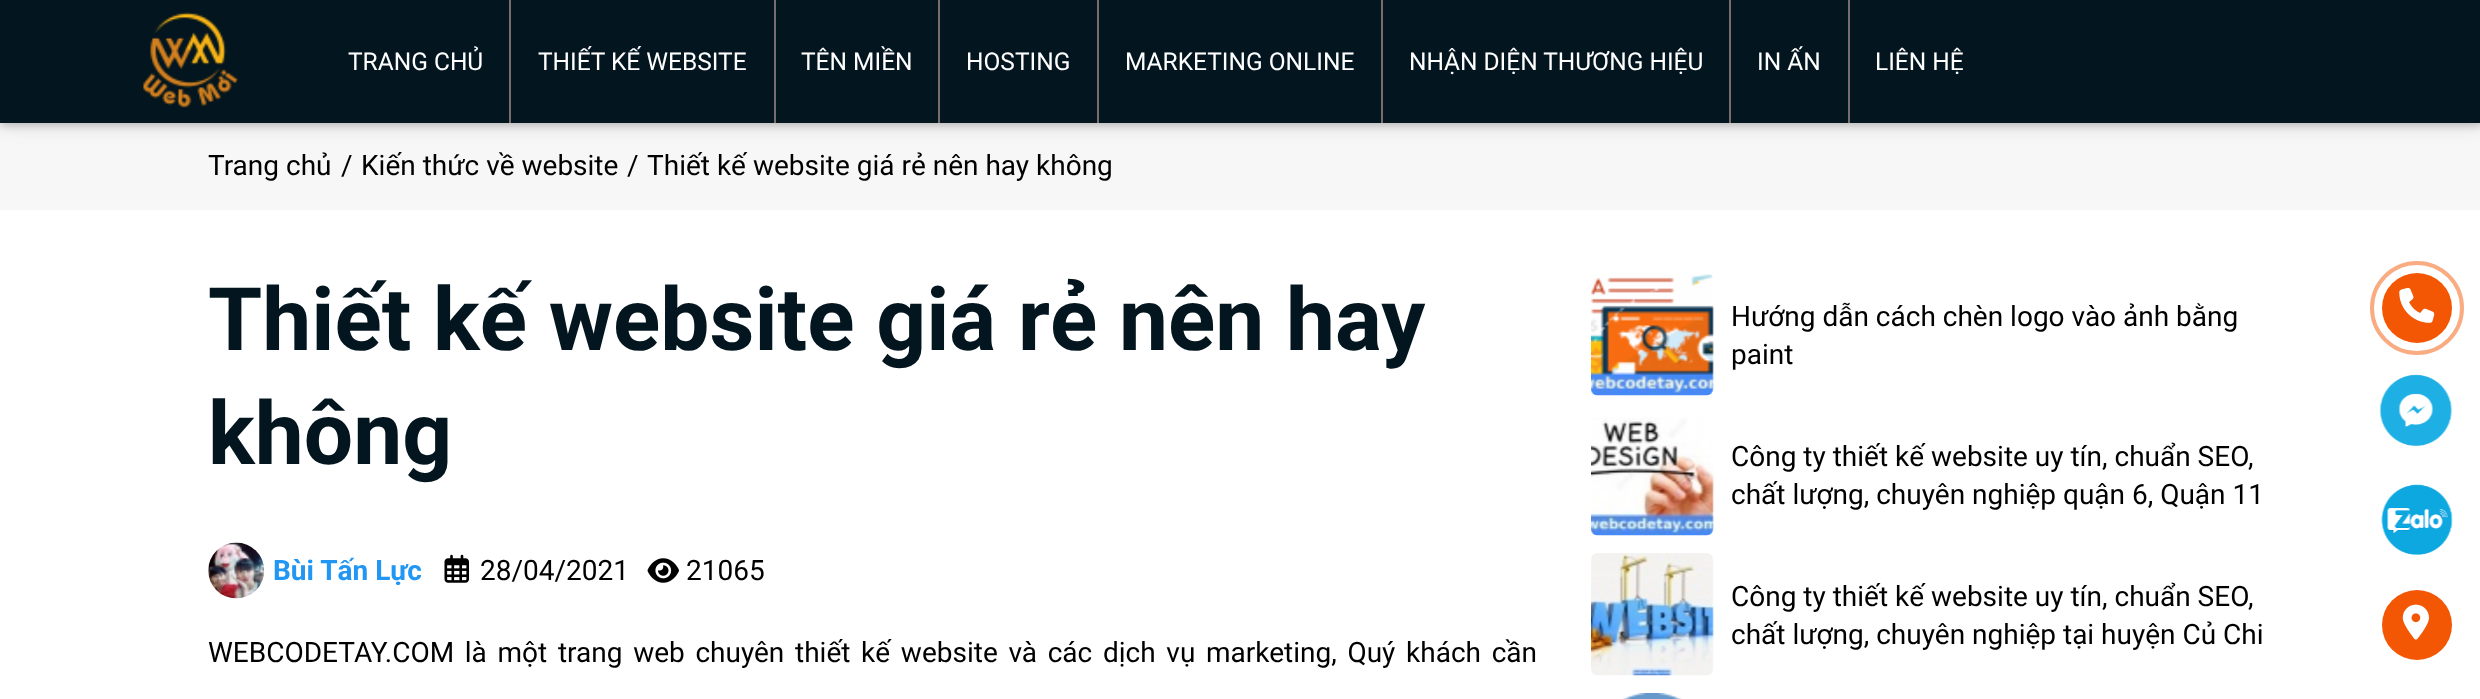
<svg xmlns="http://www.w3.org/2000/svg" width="2480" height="699">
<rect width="100%" height="100%" fill="#fff"/>
<rect y="123" width="2480" height="87" fill="#f8f7f7"/>
<rect y="4" width="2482" height="122" fill="#0000001f" filter="blur(9px)"/>
<rect y="4" width="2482" height="122" fill="#00000029" filter="blur(3.5px)"/>
<rect width="2480" height="123" fill="#03151e"/>
<image x="142" y="12" width="97" height="96" href="media/1.png"/>
<rect x="509" width="2" height="123" fill="#786d6d"/>
<text x="348" y="70" style="font-family:Roboto;font-size:24.5px;fill:#fff">TRANG CHỦ</text>
<rect x="774" width="2" height="123" fill="#786d6d"/>
<text x="538" y="70" style="font-family:Roboto;font-size:24.5px;fill:#fff">THIẾT KẾ WEBSITE</text>
<rect x="938" width="2" height="123" fill="#786d6d"/>
<text x="801" y="70" style="font-family:Roboto;font-size:24.5px;fill:#fff">TÊN MIỀN</text>
<rect x="1097" width="2" height="123" fill="#786d6d"/>
<text x="966" y="70" style="font-family:Roboto;font-size:24.5px;fill:#fff">HOSTING</text>
<rect x="1381" width="2" height="123" fill="#786d6d"/>
<text x="1125" y="70" style="font-family:Roboto;font-size:24.5px;fill:#fff">MARKETING ONLINE</text>
<rect x="1729" width="2" height="123" fill="#786d6d"/>
<text x="1409" y="70" style="font-family:Roboto;font-size:24.5px;fill:#fff">NHẬN DIỆN THƯƠNG HIỆU</text>
<rect x="1848" width="2" height="123" fill="#786d6d"/>
<text x="1757" y="70" style="font-family:Roboto;font-size:24.5px;fill:#fff">IN ẤN</text>
<text x="1875" y="70" style="font-family:Roboto;font-size:24.5px;fill:#fff">LIÊN HỆ</text>
<text x="208" y="175" style="font-family:Roboto;font-size:28px;fill:#000">Trang chủ</text>
<text x="341" y="175" style="font-family:Roboto;font-size:28px;fill:#000">/</text>
<text x="361" y="175" style="font-family:Roboto;font-size:28px;fill:#000">Kiến thức về website</text>
<text x="627" y="175" style="font-family:Roboto;font-size:28px;fill:#000">/</text>
<text x="647" y="175" style="font-family:Roboto;font-size:28px;fill:#000">Thiết kế website giá rẻ nên hay không</text>
<text x="208" y="350" style="font-family:Roboto;font-size:87.5px;font-weight:bold;fill:#03151e">Thiết kế website giá rẻ nên hay</text>
<text x="208" y="464" style="font-family:Roboto;font-size:87.5px;font-weight:bold;fill:#03151e">không</text>
<image x="208" y="542" width="57" height="57" href="media/2.png"/>
<text x="273" y="580" style="font-family:Roboto;font-size:28px;font-weight:bold;fill:#2196f3">Bùi Tấn Lực</text>
<image x="444" y="554" width="25" height="29" href="media/3.png"/>
<text x="480" y="580" style="font-family:Roboto;font-size:28px;fill:#000">28/04/2021</text>
<image x="647" y="558" width="32" height="25" href="media/4.png"/>
<text x="686" y="580" style="font-family:Roboto;font-size:28px;fill:#000">21065</text>
<text x="208" y="662" word-spacing="3.75" style="font-family:Roboto;font-size:28px;fill:#000">WEBCODETAY.COM là một trang web chuyên thiết kế website và các dịch vụ marketing, Quý khách cần</text>
<image x="1591" y="274" width="123" height="122" href="media/5.png"/>
<text x="1731" y="326" style="font-family:Roboto;font-size:28px;fill:#000">Hướng dẫn cách chèn logo vào ảnh bằng</text>
<text x="1731" y="364" style="font-family:Roboto;font-size:28px;fill:#000">paint</text>
<image x="1591" y="417" width="123" height="119" href="media/6.png"/>
<text x="1731" y="466" style="font-family:Roboto;font-size:28px;fill:#000">Công ty thiết kế website uy tín, chuẩn SEO,</text>
<text x="1731" y="504" style="font-family:Roboto;font-size:28px;fill:#000">chất lượng, chuyên nghiệp quận 6, Quận 11</text>
<image x="1591" y="553" width="123" height="123" href="media/7.png"/>
<text x="1731" y="606" style="font-family:Roboto;font-size:28px;fill:#000">Công ty thiết kế website uy tín, chuẩn SEO,</text>
<text x="1731" y="644" style="font-family:Roboto;font-size:28px;fill:#000">chất lượng, chuyên nghiệp tại huyện Củ Chi</text>
<image x="1622" y="693" width="60" height="6" href="media/8.png"/>
<circle cx="2417" cy="308" r="45" fill="none" stroke="#f9ab82" stroke-width="4"/>
<circle cx="2417" cy="308" r="35" fill="#f35704"/>
<image x="2399" y="287" width="36" height="36" href="media/9.png"/>
<image x="2379" y="374" width="73" height="72" href="media/10.png"/>
<image x="2381" y="484" width="72" height="71" href="media/11.png"/>
<circle cx="2417" cy="625" r="35" fill="#f35704"/>
<image x="2402" y="604" width="27" height="36" href="media/12.png"/>
</svg>
